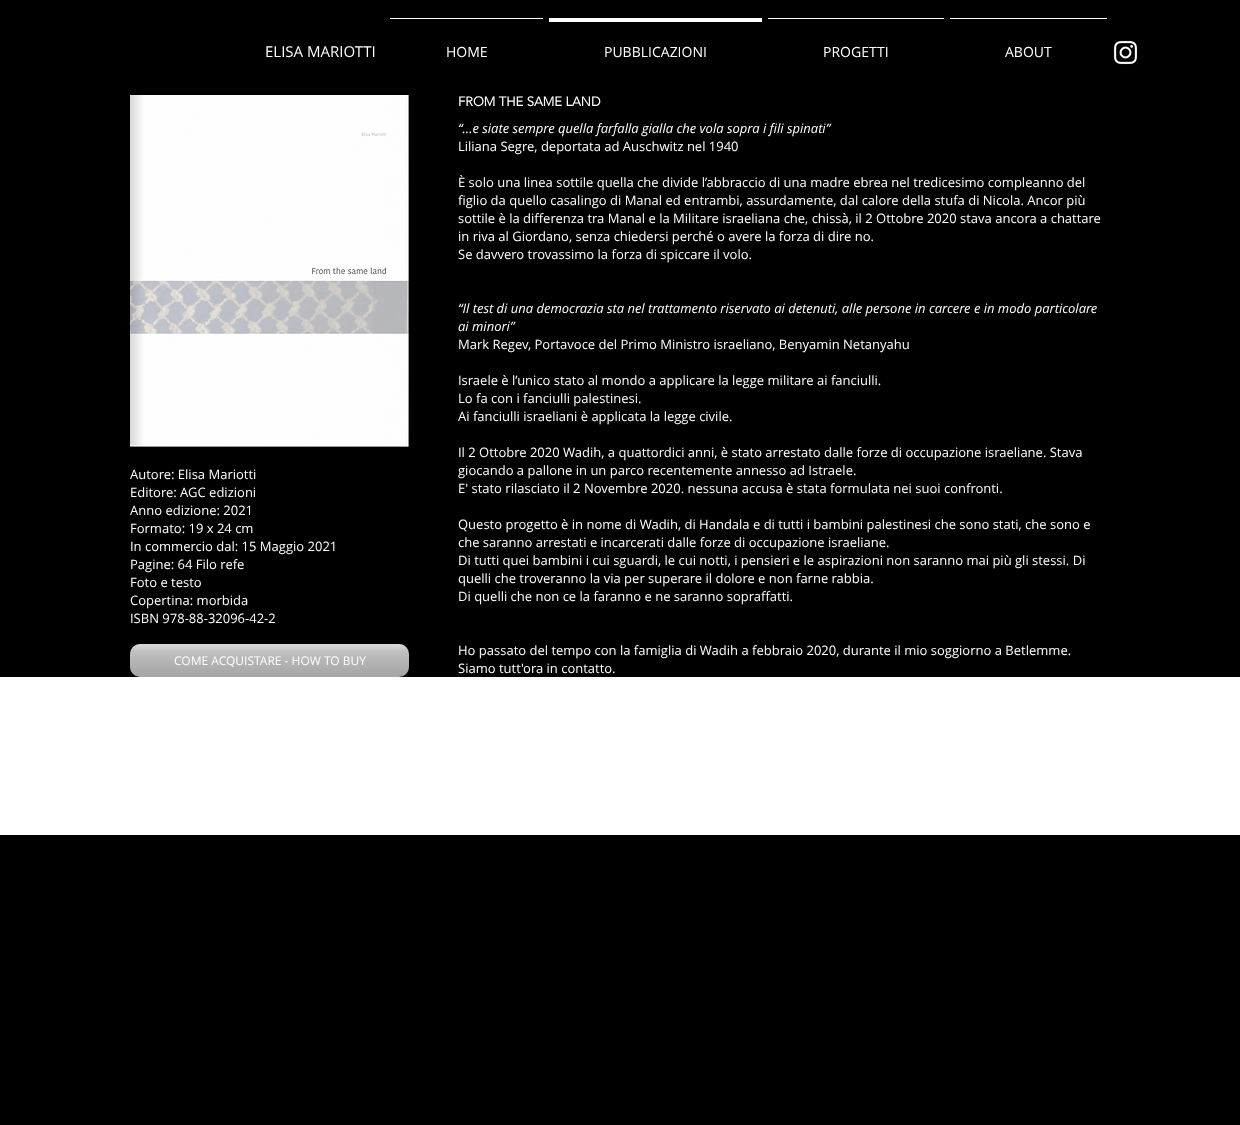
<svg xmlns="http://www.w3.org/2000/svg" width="1240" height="1125">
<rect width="100%" height="100%" fill="#000"/>
<text x="265" y="57" style="font-family:Open Sans;font-size:15px;fill:#fff">ELISA MARIOTTI</text>
<rect x="390" y="18" width="153" height="1" fill="#fff"/>
<text x="446" y="57" style="font-family:Open Sans;font-size:14px;fill:#fff">HOME</text>
<rect x="549" y="18" width="213" height="4" fill="#fff"/>
<text x="604" y="57" style="font-family:Open Sans;font-size:14px;fill:#fff">PUBBLICAZIONI</text>
<rect x="768" y="18" width="176" height="1" fill="#fff"/>
<text x="823" y="57" style="font-family:Open Sans;font-size:14px;fill:#fff">PROGETTI</text>
<rect x="950" y="18" width="157" height="1" fill="#fff"/>
<text x="1005" y="57" style="font-family:Open Sans;font-size:14px;fill:#fff">ABOUT</text>
<image x="1113" y="40" width="25" height="25" href="media/1.png"/>
<image x="130" y="95" width="279" height="352" href="media/2.png"/>
<text x="458" y="106" style="font-family:'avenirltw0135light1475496';font-size:13px;font-weight:bold;fill:#fff">FROM THE SAME LAND</text>
<text x="130" y="479" style="font-family:Open Sans;font-size:13px;fill:#fff">Autore: Elisa Mariotti</text>
<text x="130" y="497" style="font-family:Open Sans;font-size:13px;fill:#fff">Editore: AGC edizioni</text>
<text x="130" y="515" style="font-family:Open Sans;font-size:13px;fill:#fff">Anno edizione: 2021</text>
<text x="130" y="533" style="font-family:Open Sans;font-size:13px;fill:#fff">Formato: 19 x 24 cm</text>
<text x="130" y="551" style="font-family:Open Sans;font-size:13px;fill:#fff">In commercio dal: 15 Maggio 2021</text>
<text x="130" y="569" style="font-family:Open Sans;font-size:13px;fill:#fff">Pagine: 64 Filo refe</text>
<text x="130" y="587" style="font-family:Open Sans;font-size:13px;fill:#fff">Foto e testo</text>
<text x="130" y="605" style="font-family:Open Sans;font-size:13px;fill:#fff">Copertina: morbida</text>
<text x="130" y="623" style="font-family:Open Sans;font-size:13px;fill:#fff">ISBN 978-88-32096-42-2</text>
<text x="458" y="133" style="font-family:Open Sans;font-size:13px;font-style:italic;fill:#fff">“...e siate sempre quella farfalla gialla che vola sopra i fili spinati”</text>
<text x="458" y="151" style="font-family:Open Sans;font-size:13px;fill:#fff">Liliana Segre, deportata ad Auschwitz nel 1940</text>
<text x="458" y="187" style="font-family:Open Sans;font-size:13px;fill:#fff">È solo una linea sottile quella che divide l’abbraccio di una madre ebrea nel tredicesimo compleanno del</text>
<text x="458" y="205" style="font-family:Open Sans;font-size:13px;fill:#fff">figlio da quello casalingo di Manal ed entrambi, assurdamente, dal calore della stufa di Nicola. Ancor più</text>
<text x="458" y="223" style="font-family:Open Sans;font-size:13px;fill:#fff">sottile è la differenza tra Manal e la Militare israeliana che, chissà, il 2 Ottobre 2020 stava ancora a chattare</text>
<text x="458" y="241" style="font-family:Open Sans;font-size:13px;fill:#fff">in riva al Giordano, senza chiedersi perché o avere la forza di dire no.</text>
<text x="458" y="259" style="font-family:Open Sans;font-size:13px;fill:#fff">Se davvero trovassimo la forza di spiccare il volo.</text>
<text x="458" y="313" style="font-family:Open Sans;font-size:13px;font-style:italic;fill:#fff">“Il test di una democrazia sta nel trattamento riservato ai detenuti, alle persone in carcere e in modo particolare</text>
<text x="458" y="331" style="font-family:Open Sans;font-size:13px;font-style:italic;fill:#fff">ai minori”</text>
<text x="458" y="349" style="font-family:Open Sans;font-size:13px;fill:#fff">Mark Regev, Portavoce del Primo Ministro israeliano, Benyamin Netanyahu</text>
<text x="458" y="385" style="font-family:Open Sans;font-size:13px;fill:#fff">Israele è l’unico stato al mondo a applicare la legge militare ai fanciulli.</text>
<text x="458" y="403" style="font-family:Open Sans;font-size:13px;fill:#fff">Lo fa con i fanciulli palestinesi.</text>
<text x="458" y="421" style="font-family:Open Sans;font-size:13px;fill:#fff">Ai fanciulli israeliani è applicata la legge civile.</text>
<text x="458" y="457" style="font-family:Open Sans;font-size:13px;fill:#fff">Il 2 Ottobre 2020 Wadih, a quattordici anni, è stato arrestato dalle forze di occupazione israeliane. Stava</text>
<text x="458" y="475" style="font-family:Open Sans;font-size:13px;fill:#fff">giocando a pallone in un parco recentemente annesso ad Istraele.</text>
<text x="458" y="493" style="font-family:Open Sans;font-size:13px;fill:#fff">E' stato rilasciato il 2 Novembre 2020. nessuna accusa è stata formulata nei suoi confronti.</text>
<text x="458" y="529" style="font-family:Open Sans;font-size:13px;fill:#fff">Questo progetto è in nome di Wadih, di Handala e di tutti i bambini palestinesi che sono stati, che sono e</text>
<text x="458" y="547" style="font-family:Open Sans;font-size:13px;fill:#fff">che saranno arrestati e incarcerati dalle forze di occupazione israeliane.</text>
<text x="458" y="565" style="font-family:Open Sans;font-size:13px;fill:#fff">Di tutti quei bambini i cui sguardi, le cui notti, i pensieri e le aspirazioni non saranno mai più gli stessi. Di</text>
<text x="458" y="583" style="font-family:Open Sans;font-size:13px;fill:#fff">quelli che troveranno la via per superare il dolore e non farne rabbia.</text>
<text x="458" y="601" style="font-family:Open Sans;font-size:13px;fill:#fff">Di quelli che non ce la faranno e ne saranno sopraffatti.</text>
<text x="458" y="655" style="font-family:Open Sans;font-size:13px;fill:#fff">Ho passato del tempo con la famiglia di Wadih a febbraio 2020, durante il mio soggiorno a Betlemme.</text>
<text x="458" y="673" style="font-family:Open Sans;font-size:13px;fill:#fff">Siamo tutt'ora in contatto.</text>
<rect x="130" y="644" width="279" height="33" rx="10" fill="#9e9e9e"/>
<image x="130" y="644" width="279" height="33" href="media/3.png"/>
<text x="174" y="665" style="font-family:Open Sans;font-size:12px;fill:#fff">COME ACQUISTARE - HOW TO BUY</text>
<rect y="677" width="1240" height="158" fill="#fff"/>
</svg>
